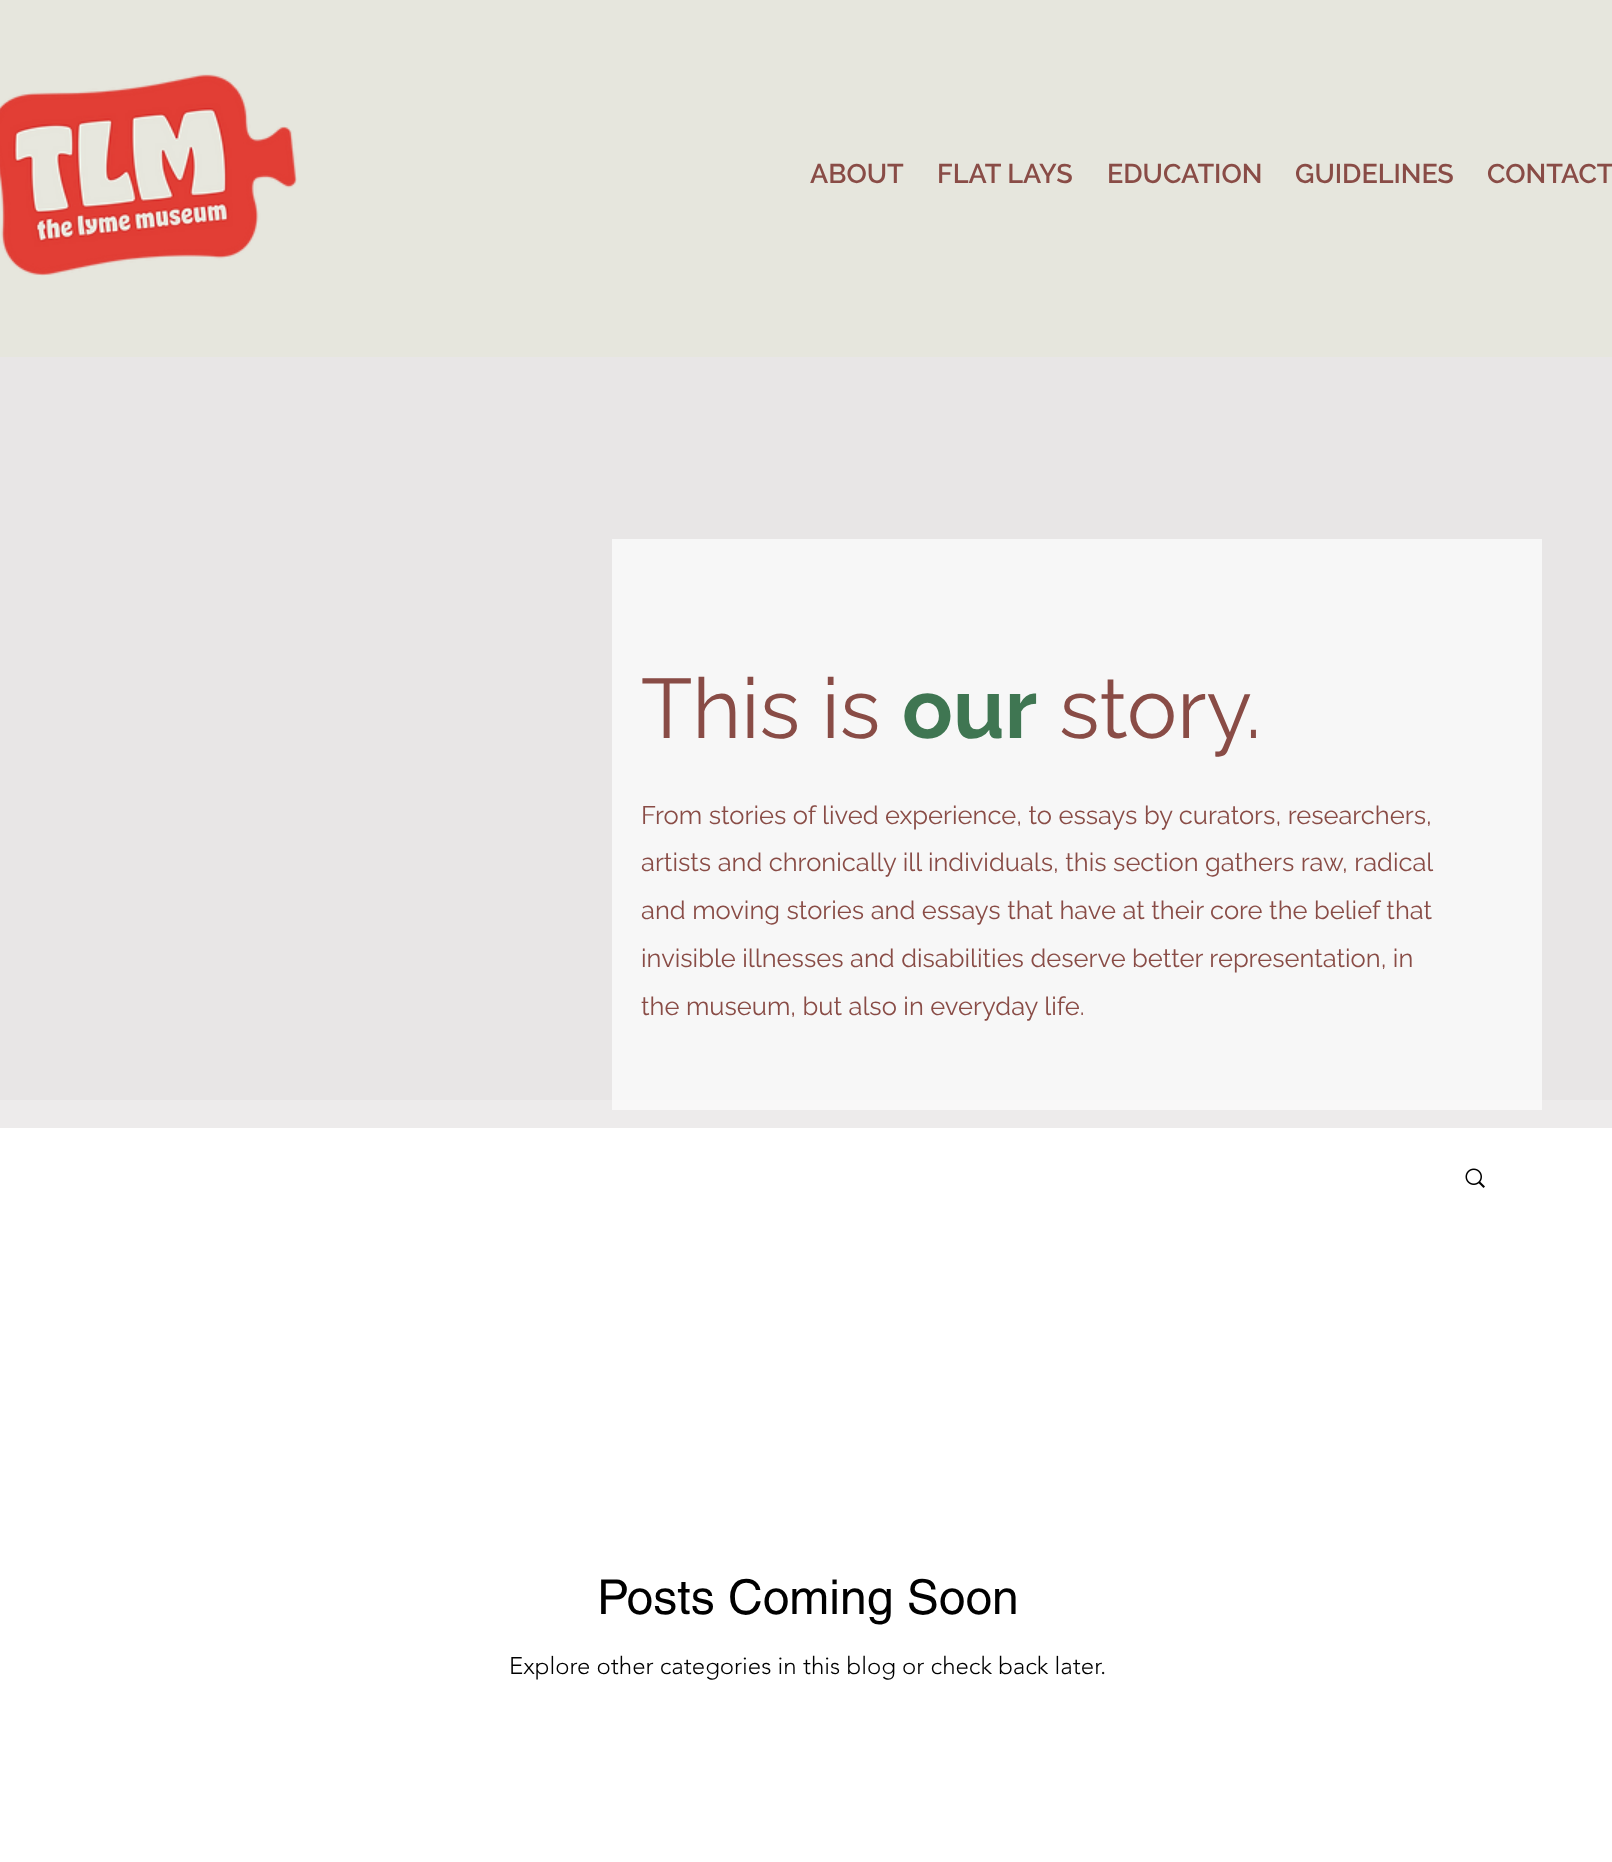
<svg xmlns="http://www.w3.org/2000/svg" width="1612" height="1862">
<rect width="100%" height="100%" fill="#fff"/>
<rect width="1612" height="357" fill="#e6e6dd"/>
<image x="0" y="74" width="297" height="202" href="media/1.png"/>
<text x="810" y="183" style="font-family:Raleway;font-size:27px;font-weight:600;fill:#894c46">ABOUT</text>
<text x="937" y="183" style="font-family:Raleway;font-size:27px;font-weight:600;fill:#894c46">FLAT LAYS</text>
<text x="1107" y="183" style="font-family:Raleway;font-size:27px;font-weight:600;fill:#894c46">EDUCATION</text>
<text x="1295" y="183" style="font-family:Raleway;font-size:27px;font-weight:600;fill:#894c46">GUIDELINES</text>
<text x="1487" y="183" style="font-family:Raleway;font-size:27px;font-weight:600;fill:#894c46">CONTACT</text>
<rect y="357" width="1612" height="743" fill="#e8e6e6"/>
<rect x="612" y="539" width="930" height="561" fill="#f7f7f7"/>
<text x="641" y="738" style="font-family:Raleway;font-size:84px;fill:#894c46">This is</text>
<text x="902" y="738" style="font-family:Raleway;font-size:84px;font-weight:bold;fill:#3f7652">our</text>
<text x="1059" y="738" style="font-family:Raleway;font-size:84px;fill:#894c46">story.</text>
<text x="641" y="824" style="font-family:Raleway;font-size:25.5px;fill:#894c46">From stories of lived experience, to essays by curators, researchers,</text>
<text x="641" y="871" style="font-family:Raleway;font-size:25.5px;fill:#894c46">artists and chronically ill individuals, this section gathers raw, radical</text>
<text x="641" y="919" style="font-family:Raleway;font-size:25.5px;fill:#894c46">and moving stories and essays that have at their core the belief that</text>
<text x="641" y="967" style="font-family:Raleway;font-size:25.5px;fill:#894c46">invisible illnesses and disabilities deserve better representation, in</text>
<text x="641" y="1015" style="font-family:Raleway;font-size:25.5px;fill:#894c46">the museum, but also in everyday life.</text>
<rect y="1100" width="1612" height="28" fill="#edebeb"/>
<rect x="612" y="1100" width="930" height="10" fill="#f9f8f8"/>
<image x="1465" y="1168" width="20" height="20" href="media/2.png"/>
<text x="597" y="1614" style="font-family:helvetica;font-size:48px;fill:#000">Posts Coming Soon</text>
<text x="509" y="1674" style="font-family:'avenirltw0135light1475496';font-size:24px;font-weight:300;fill:#000">Explore other categories in this blog or check back later.</text>
</svg>
